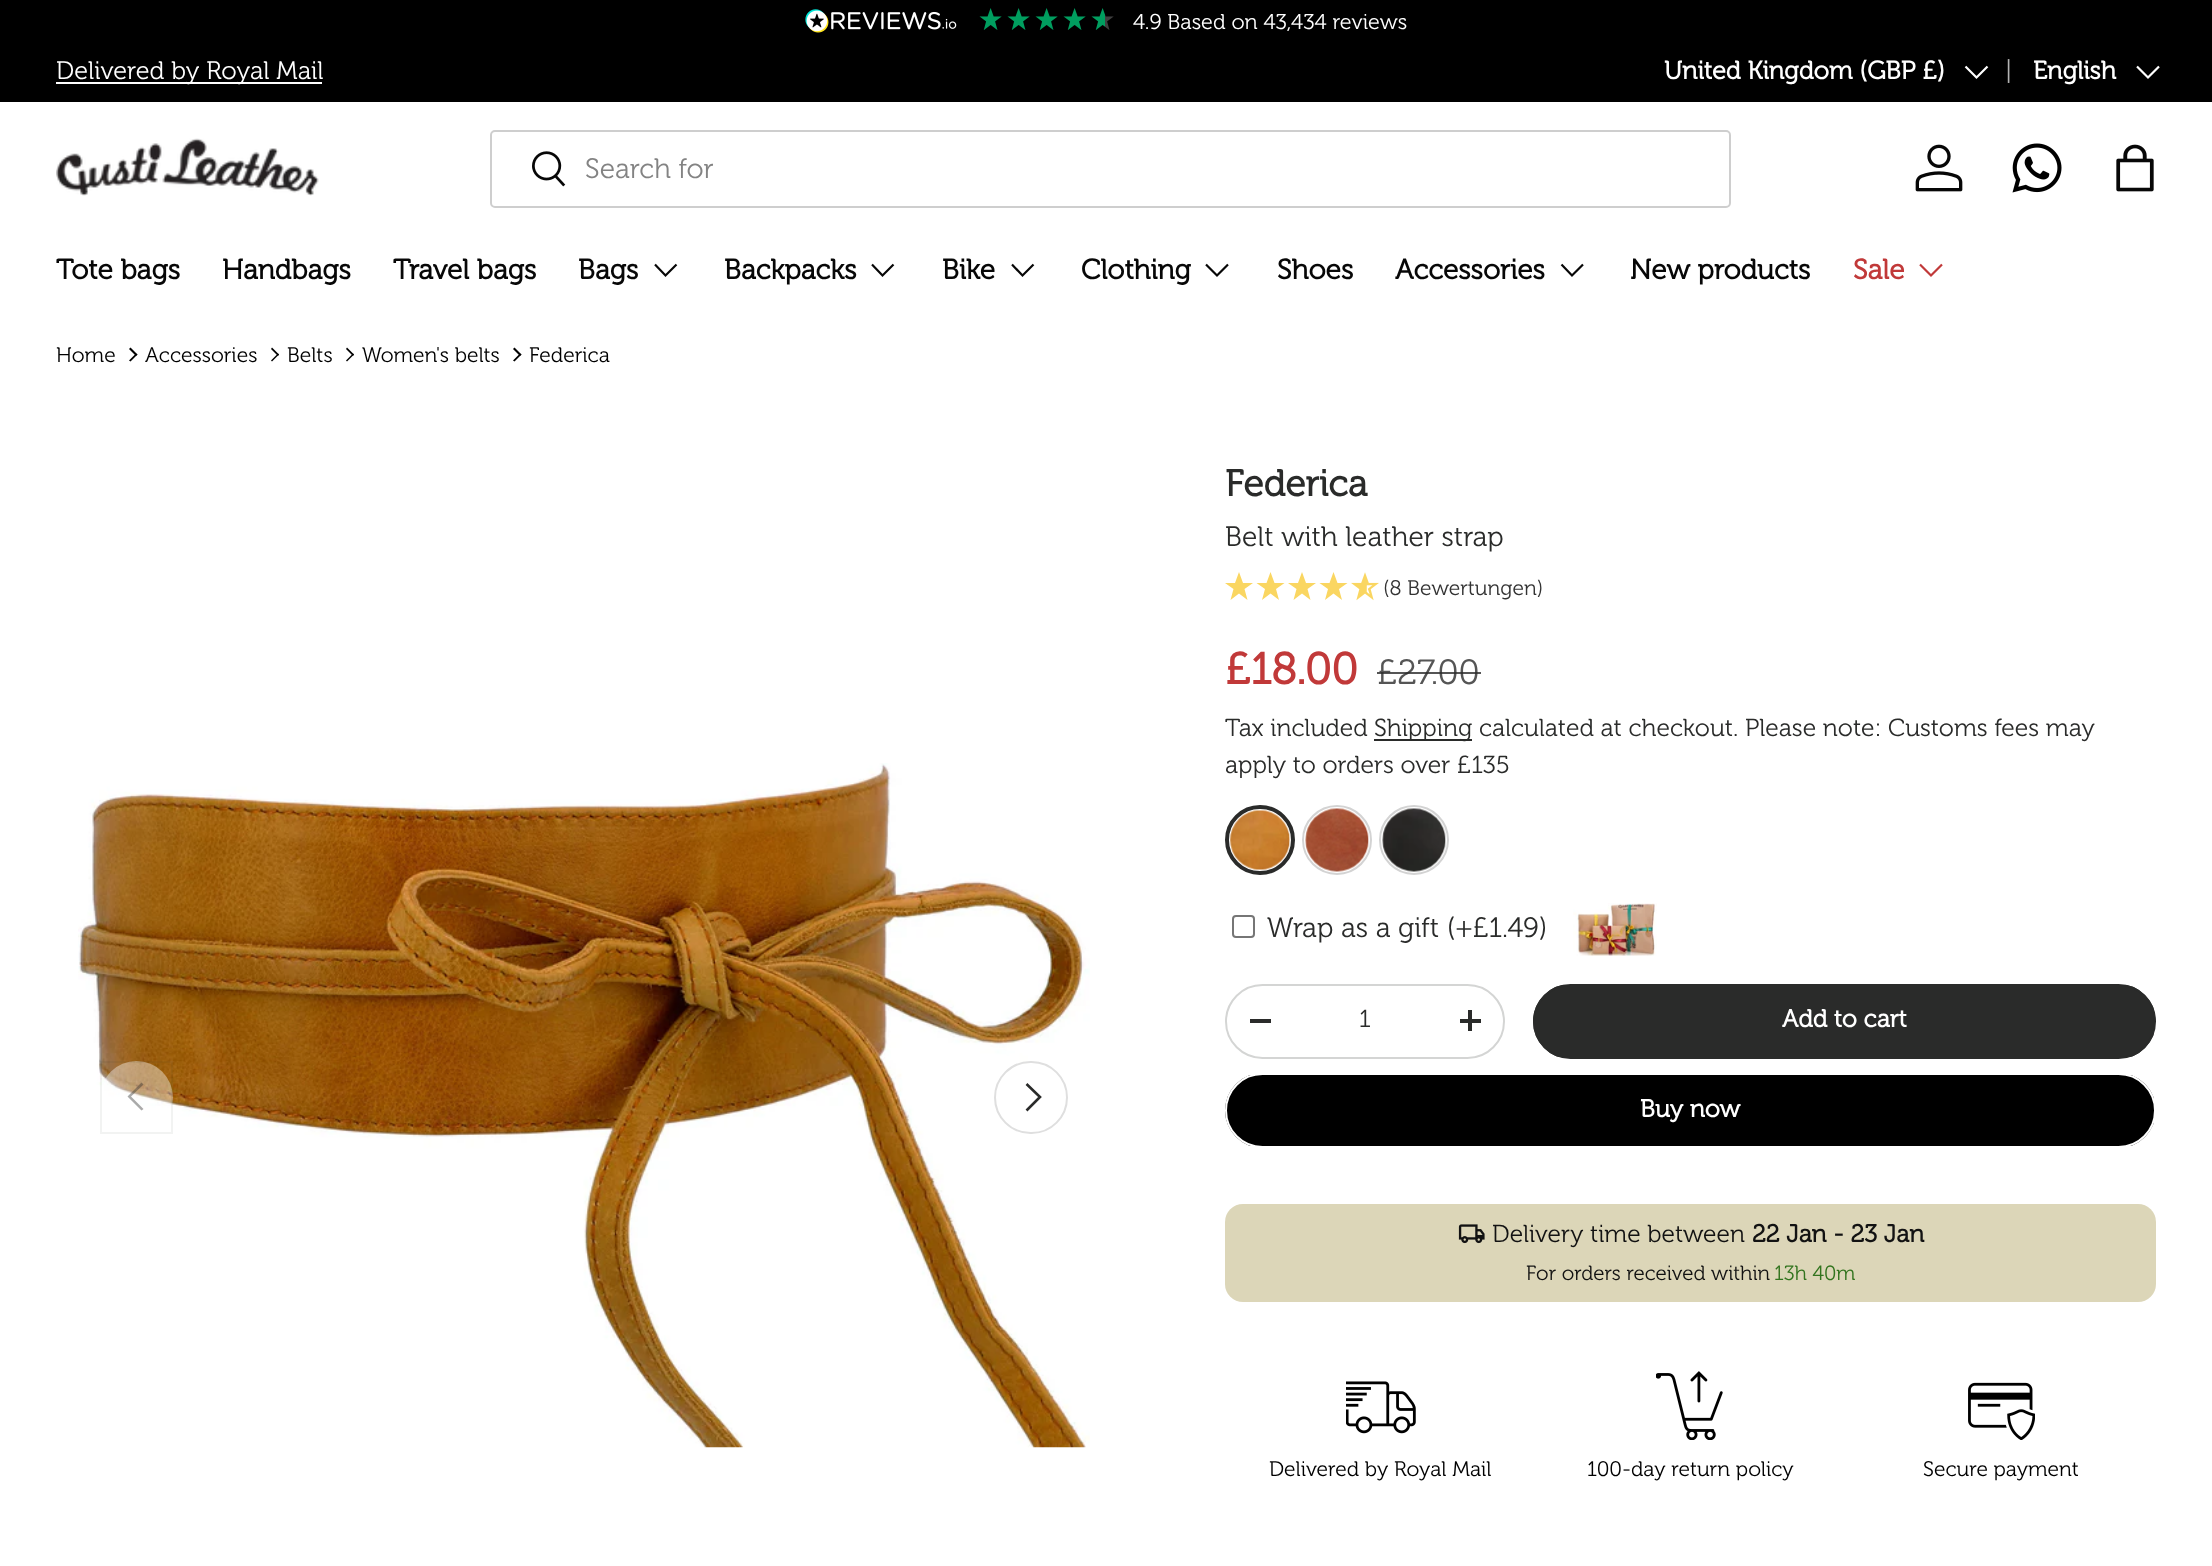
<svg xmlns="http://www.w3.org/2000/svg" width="2212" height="1566">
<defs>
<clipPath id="clip1"><rect x="1533" y="984" width="623" height="75" rx="37.5"/></clipPath>
<linearGradient id="g1" gradientUnits="userSpaceOnUse" x1="342" y1="801" x2="2108" y2="1241"><stop offset="0.6" stop-color="#525352"/><stop offset="0.6" stop-color="#2a2b2a"/><stop offset="1" stop-color="#2a2b2a"/></linearGradient>
<clipPath id="clip2"><rect x="1225" y="1073" width="931" height="75" rx="37.5"/></clipPath>
<linearGradient id="g2" gradientUnits="userSpaceOnUse" x1="-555" y1="782" x2="2081" y2="1439"><stop offset="0.6" stop-color="#fff" stop-opacity="0.07"/><stop offset="0.6" stop-color="#000"/><stop offset="1" stop-color="#000"/></linearGradient>
</defs>
<rect width="100%" height="100%" fill="#fff"/>
<rect width="2212" height="102" fill="#000"/>
<image x="805" y="9" width="152" height="24" href="media/1.png"/>
<image x="979" y="8" width="23" height="22" href="media/2.png"/>
<image x="1007" y="8" width="23" height="22" href="media/2.png"/>
<image x="1035" y="8" width="23" height="22" href="media/2.png"/>
<image x="1063" y="8" width="23" height="22" href="media/2.png"/>
<image x="1091" y="8" width="23" height="22" href="media/3.png"/>
<text x="1133" y="29" style="font-family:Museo;font-size:21.5px;font-weight:300;fill:#fff">4.9 Based on 43,434 reviews</text>
<rect x="56" y="82" width="266" height="2" fill="#fff"/>
<text x="56" y="79" style="font-family:Museo;font-size:25.25px;font-weight:300;fill:#fff">Delivered by Royal Mail</text>
<text x="1664" y="79" style="font-family:Museo;font-size:25.25px;font-weight:bold;fill:#fff">United Kingdom (GBP £)</text>
<path d="M1987.5 66.5l-11 11l-11-11" fill="none" stroke="#fff" stroke-width="2.2"/>
<text x="2005" y="79" style="font-family:Museo;font-size:25.25px;font-weight:300;fill:#b3b3b3">|</text>
<text x="2033" y="79" style="font-family:Museo;font-size:25.25px;font-weight:bold;fill:#fff">English</text>
<path d="M2159 66.5l-11 11l-11-11" fill="none" stroke="#fff" stroke-width="2.2"/>
<image x="56" y="138" width="263" height="58" href="media/4.png"/>
<rect x="491" y="131" width="1239" height="76" rx="4" fill="none" stroke="#cecece" stroke-width="2"/>
<image x="532" y="151" width="34" height="36" href="media/5.png"/>
<text x="585" y="178" style="font-family:Museo;font-size:28px;font-weight:300;fill:#838383">Search for</text>
<image x="1915" y="144" width="48" height="48" href="media/6.png"/>
<image x="2012" y="143" width="50" height="50" href="media/7.png"/>
<image x="2116" y="144" width="38" height="48" href="media/8.png"/>
<text x="56" y="279" style="font-family:Museo;font-size:28px;font-weight:bold;fill:#070707">Tote bags</text>
<text x="222" y="279" style="font-family:Museo;font-size:28px;font-weight:bold;fill:#070707">Handbags</text>
<text x="393" y="279" style="font-family:Museo;font-size:28px;font-weight:bold;fill:#070707">Travel bags</text>
<text x="578" y="279" style="font-family:Museo;font-size:28px;font-weight:bold;fill:#070707">Bags</text>
<path d="M676.5 264.5l-11 11l-10.5-11" fill="none" stroke="#070707" stroke-width="2.2"/>
<text x="724" y="279" style="font-family:Museo;font-size:28px;font-weight:bold;fill:#070707">Backpacks</text>
<path d="M893.5 264.5l-11 11l-10.5-11" fill="none" stroke="#070707" stroke-width="2.2"/>
<text x="942" y="279" style="font-family:Museo;font-size:28px;font-weight:bold;fill:#070707">Bike</text>
<path d="M1033.5 264.5l-11 11l-10.5-11" fill="none" stroke="#070707" stroke-width="2.2"/>
<text x="1081" y="279" style="font-family:Museo;font-size:28px;font-weight:bold;fill:#070707">Clothing</text>
<path d="M1228 264.5l-11 11l-11-11" fill="none" stroke="#070707" stroke-width="2.2"/>
<text x="1277" y="279" style="font-family:Museo;font-size:28px;font-weight:bold;fill:#070707">Shoes</text>
<text x="1395" y="279" style="font-family:Museo;font-size:28px;font-weight:bold;fill:#070707">Accessories</text>
<path d="M1583 264.5l-11 11l-10.5-11" fill="none" stroke="#070707" stroke-width="2.2"/>
<text x="1630" y="279" style="font-family:Museo;font-size:28px;font-weight:bold;fill:#070707">New products</text>
<text x="1853" y="279" style="font-family:Museo;font-size:28px;font-weight:bold;fill:#c13939">Sale</text>
<path d="M1942 264.5l-11 11l-11-11" fill="none" stroke="#c13939" stroke-width="2.2"/>
<text x="56" y="362" style="font-family:Museo;font-size:21px;font-weight:300;fill:#000">Home</text>
<path d="M130.5 347.5l7 7l-1.5 1.5l-7-7z" fill="#000"/>
<path d="M136 353.5l1.5 1l-7 7l-1.5-1z" fill="#000"/>
<text x="145" y="362" style="font-family:Museo;font-size:21px;font-weight:300;fill:#000">Accessories</text>
<path d="M272 347.5l7 7l-1 1.5l-7-7z" fill="#000"/>
<path d="M278 353.5l1 1l-7 7l-1-1z" fill="#000"/>
<text x="287" y="362" style="font-family:Museo;font-size:21px;font-weight:300;fill:#000">Belts</text>
<path d="M347 347.5l7 7l-1 1.5l-7-7z" fill="#000"/>
<path d="M353 353.5l1 1l-7 7l-1-1z" fill="#000"/>
<text x="362" y="362" style="font-family:Museo;font-size:21px;font-weight:300;fill:#000">Women's belts</text>
<path d="M514.5 347.5l7 7l-1.5 1.5l-7-7z" fill="#000"/>
<path d="M520 353.5l1.5 1l-7 7l-1.5-1z" fill="#000"/>
<text x="529" y="362" style="font-family:Museo;font-size:21px;font-weight:300;fill:#000">Federica</text>
<image x="78" y="763" width="1012" height="685" href="media/9.png"/>
<circle cx="136.5" cy="1097.5" r="36.5" fill="#ffffff66"/>
<rect x="101" y="1062" width="71" height="71" fill="none" stroke="#2a2b2a0f" stroke-width="2"/>
<path d="M127.5 1096.5l14-14l2 2l-12.5 12l12.5 12.5l-2 1.5z" fill="#2a2b2a66"/>
<rect x="995" y="1062" width="72" height="71" rx="35.5" fill="none" stroke="#dfdfdf" stroke-width="2"/>
<path d="M1026.5 1084l13.5 13l-13.5 13.5" fill="none" stroke="#2a2b2a" stroke-width="2.6"/>
<text x="1225" y="496" style="font-family:Museo;font-size:37px;font-weight:bold;fill:#2a2b2a">Federica</text>
<text x="1225" y="546" style="font-family:Museo;font-size:28px;font-weight:300;fill:#2a2b2a">Belt with leather strap</text>
<path d="M1253 583l-8.5 6l3 11l-8.5-6.5l-8.5 6.5l3-11l-8.5-6h10l4-11l4 11zm31.5 0l-8.5 6l3 11l-8.5-6.5l-8.5 6.5l3-11l-8.5-6h10l4-11l4 11z" fill="#fad661"/>
<path d="M1316 583l-8.5 6l3 11l-8.5-6.5l-8.5 6.5l3-11l-8.5-6h10l4-11l4 11zm31.5 0l-8.5 6l3 11l-8.5-6.5l-8.5 6.5l3-11l-8.5-6h10l4-11l4 11z" fill="#fad661"/>
<image x="1351" y="572" width="28" height="29" href="media/10.png"/>
<text x="1383" y="595" style="font-family:Museo;font-size:21px;font-weight:300;fill:#333">(8 Bewertungen)</text>
<text x="1225" y="684" style="font-family:Museo;font-size:44px;font-weight:bold;fill:#c13939">£18.00</text>
<text x="1377" y="684" style="font-family:Museo;font-size:35px;font-weight:300;fill:#555">£27.00</text>
<rect x="1377" y="672" width="104" height="2" fill="#2a2b2acc"/>
<text x="1225" y="736" style="font-family:Museo;font-size:24.65px;font-weight:300;fill:#2a2b2a">Tax included</text>
<rect x="1374" y="739" width="98" height="2" fill="#2a2b2a"/>
<text x="1374" y="736" style="font-family:Museo;font-size:24.65px;font-weight:300;fill:#2a2b2a">Shipping calculated at checkout. Please note: Customs fees may</text>
<text x="1225" y="773" style="font-family:Museo;font-size:24.65px;font-weight:300;fill:#2a2b2a">apply to orders over £135</text>
<circle cx="1260" cy="840" r="33" fill="none" stroke="#2a2b2a" stroke-width="4"/>
<image x="1230" y="809" width="61" height="62" href="media/11.png"/>
<circle cx="1337" cy="840" r="34" fill="none" stroke="#d3d3d3" stroke-width="2"/>
<image x="1305" y="808" width="64" height="64" href="media/12.png"/>
<circle cx="1414" cy="840" r="34" fill="none" stroke="#d3d3d3" stroke-width="2"/>
<image x="1382" y="808" width="64" height="64" href="media/13.png"/>
<rect x="1233" y="916" width="21" height="21" rx="3" fill="none" stroke="#767676" stroke-width="2"/>
<text x="1267" y="937" style="font-family:Museo;font-size:28px;font-weight:300;fill:#2a2b2a">Wrap as a gift (+£1.49)</text>
<image x="1573" y="903" width="84" height="53" href="media/14.png"/>
<rect x="1226" y="985" width="278" height="73" rx="36.5" fill="none" stroke="#d4d5d4" stroke-width="2"/>
<rect x="1250" y="1019" width="21" height="4" fill="#2a2b2a"/>
<text x="1359" y="1027" style="font-family:Museo;font-size:24.65px;font-weight:300;fill:#2a2b2a">1</text>
<rect x="1460" y="1019" width="21" height="4" fill="#2a2b2a"/>
<rect x="1468" y="1010" width="4" height="21" fill="#2a2b2a"/>
<g clip-path="url(#clip1)">
<rect x="1533" y="985" width="621" height="72" fill="url(#g1)"/>
</g>
<rect x="1534" y="985" width="621" height="73" rx="36.5" fill="none" stroke="#2a2b2a" stroke-width="2"/>
<text x="1782" y="1027" style="font-family:Museo;font-size:24.65px;font-weight:bold;fill:#fff">Add to cart</text>
<g clip-path="url(#clip2)">
<rect x="1225" y="1075" width="929" height="71" fill="url(#g2)"/>
</g>
<rect x="1226" y="1074" width="929" height="73" rx="36.5" fill="none" stroke="#fff" stroke-width="2"/>
<text x="1640" y="1117" style="font-family:Museo;font-size:24.65px;font-weight:bold;fill:#fff">Buy now</text>
<rect x="1225" y="1204" width="931" height="98" rx="18" fill="#dcd6b8"/>
<image x="1458" y="1224" width="27" height="20" href="media/15.png"/>
<text x="1492" y="1242" style="font-family:Museo;font-size:24.5px;font-weight:300;fill:#121212">Delivery time between</text>
<text x="1752" y="1242" style="font-family:Museo;font-size:24.5px;font-weight:bold;fill:#121212">22 Jan - 23 Jan</text>
<text x="1526" y="1280" style="font-family:Museo;font-size:20.5px;font-weight:300;fill:#121212">For orders received within</text>
<text x="1774" y="1280" style="font-family:Museo;font-size:20.5px;font-weight:300;fill:#32741e">13h 40m</text>
<image x="1346" y="1381" width="70" height="53" href="media/16.png"/>
<text x="1269" y="1476" style="font-family:Museo;font-size:21px;font-weight:300;fill:#000">Delivered by Royal Mail</text>
<image x="1656" y="1371" width="67" height="69" href="media/17.png"/>
<text x="1587" y="1476" style="font-family:Museo;font-size:21px;font-weight:300;fill:#000">100-day return policy</text>
<image x="1968" y="1382" width="67" height="58" href="media/18.png"/>
<text x="1923" y="1476" style="font-family:Museo;font-size:21px;font-weight:300;fill:#000">Secure payment</text>
</svg>
